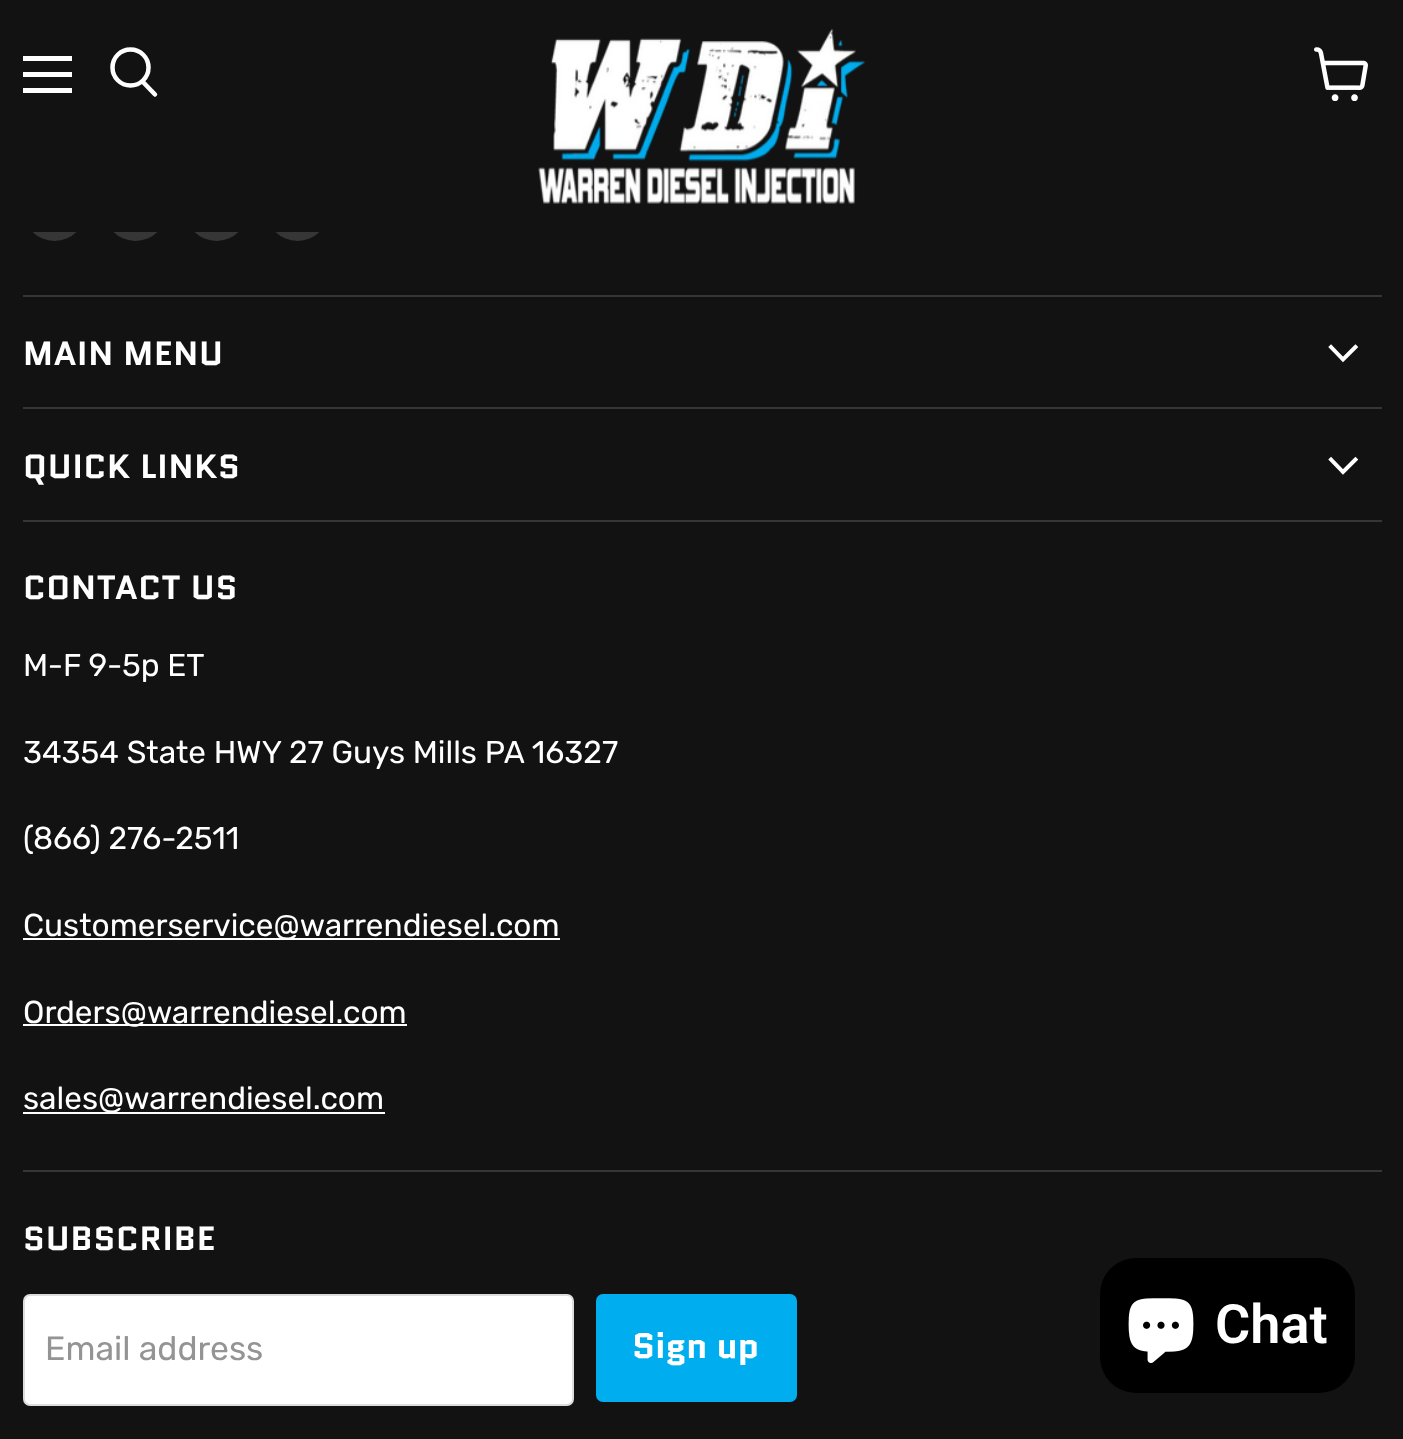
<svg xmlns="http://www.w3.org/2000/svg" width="1403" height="1439">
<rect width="100%" height="100%" fill="#121212"/>
<circle cx="54.5" cy="209.5" r="31.5" fill="#363636"/>
<circle cx="135.5" cy="209.5" r="31.5" fill="#363636"/>
<circle cx="216.5" cy="209.5" r="31.5" fill="#363636"/>
<circle cx="297.5" cy="209.5" r="31.5" fill="#363636"/>
<rect x="23" y="178" width="306" height="54" fill="#121212"/>
<rect x="23" y="56" width="49" height="5" fill="#fff"/>
<rect x="23" y="72" width="49" height="5" fill="#fff"/>
<rect x="23" y="88" width="49" height="5" fill="#fff"/>
<path d="M155 94.5l-12-12.5" fill="none" stroke="#fff" stroke-width="4.5" stroke-linecap="round"/>
<circle cx="130.5" cy="67.5" r="18" fill="none" stroke="#fff" stroke-width="4.5"/>
<image x="538" y="28" width="328" height="176" href="media/1.png"/>
<image x="1314" y="47" width="54" height="54" href="media/2.png"/>
<rect x="23" y="295" width="1359" height="2" fill="#363636"/>
<rect x="23" y="407" width="1359" height="2" fill="#363636"/>
<text x="23" y="365" style="font-family:Quantico;font-size:33.5px;font-weight:bold;letter-spacing:0.75px;fill:#fff">MAIN MENU</text>
<path d="M1343 359.5l12.5-12.5m-12.5 12.5l-12-12.5" fill="none" stroke="#fff" stroke-width="3.9" stroke-linecap="square"/>
<rect x="23" y="520" width="1359" height="2" fill="#363636"/>
<text x="23" y="478" style="font-family:Quantico;font-size:33.5px;font-weight:bold;letter-spacing:0.75px;fill:#fff">QUICK LINKS</text>
<path d="M1343 472l12.5-12.5m-12.5 12.5l-12-12.5" fill="none" stroke="#fff" stroke-width="3.9" stroke-linecap="square"/>
<rect x="23" y="1170" width="1359" height="2" fill="#363636"/>
<text x="23" y="599" style="font-family:Quantico;font-size:33.5px;font-weight:bold;letter-spacing:0.75px;fill:#fff">CONTACT US</text>
<text x="23" y="676" style="font-family:Rubik;font-size:31.6px;fill:#fff">M-F 9-5p ET</text>
<text x="23" y="763" style="font-family:Rubik;font-size:31.6px;fill:#fff">34354 State HWY 27 Guys Mills PA 16327</text>
<text x="23" y="849" style="font-family:Rubik;font-size:31.6px;fill:#fff">(866) 276-2511</text>
<rect x="23" y="938" width="537" height="2" fill="#fff"/>
<text x="23" y="936" style="font-family:Rubik;font-size:31.6px;fill:#fff">Customerservice@warrendiesel.com</text>
<rect x="23" y="1024" width="384" height="2" fill="#fff"/>
<text x="23" y="1023" style="font-family:Rubik;font-size:31.6px;fill:#fff">Orders@warrendiesel.com</text>
<rect x="23" y="1112" width="362" height="2" fill="#fff"/>
<text x="23" y="1109" style="font-family:Rubik;font-size:31.6px;fill:#fff">sales@warrendiesel.com</text>
<text x="23" y="1250" style="font-family:Quantico;font-size:33.5px;font-weight:bold;letter-spacing:0.75px;fill:#fff">SUBSCRIBE</text>
<rect x="24" y="1295" width="549" height="110" rx="6" fill="#fff" stroke="#ddd" stroke-width="2"/>
<text x="45" y="1360" style="font-family:Rubik;font-size:33.75px;fill:#949494">Email address</text>
<rect x="597" y="1295" width="199" height="106" rx="6" fill="#00aeef" stroke="#00aeef" stroke-width="2"/>
<text x="632" y="1358" style="font-family:Quantico;font-size:35.5px;font-weight:bold;fill:#fff">Sign up</text>
<rect x="1100" y="1258" width="255" height="135" rx="36" fill="#000"/>
<image x="1128" y="1298" width="66" height="65" href="media/3.png"/>
<text x="1215" y="1343" style="font-family:Roboto;font-size:54px;font-weight:600;fill:#fff">Chat</text>
</svg>
